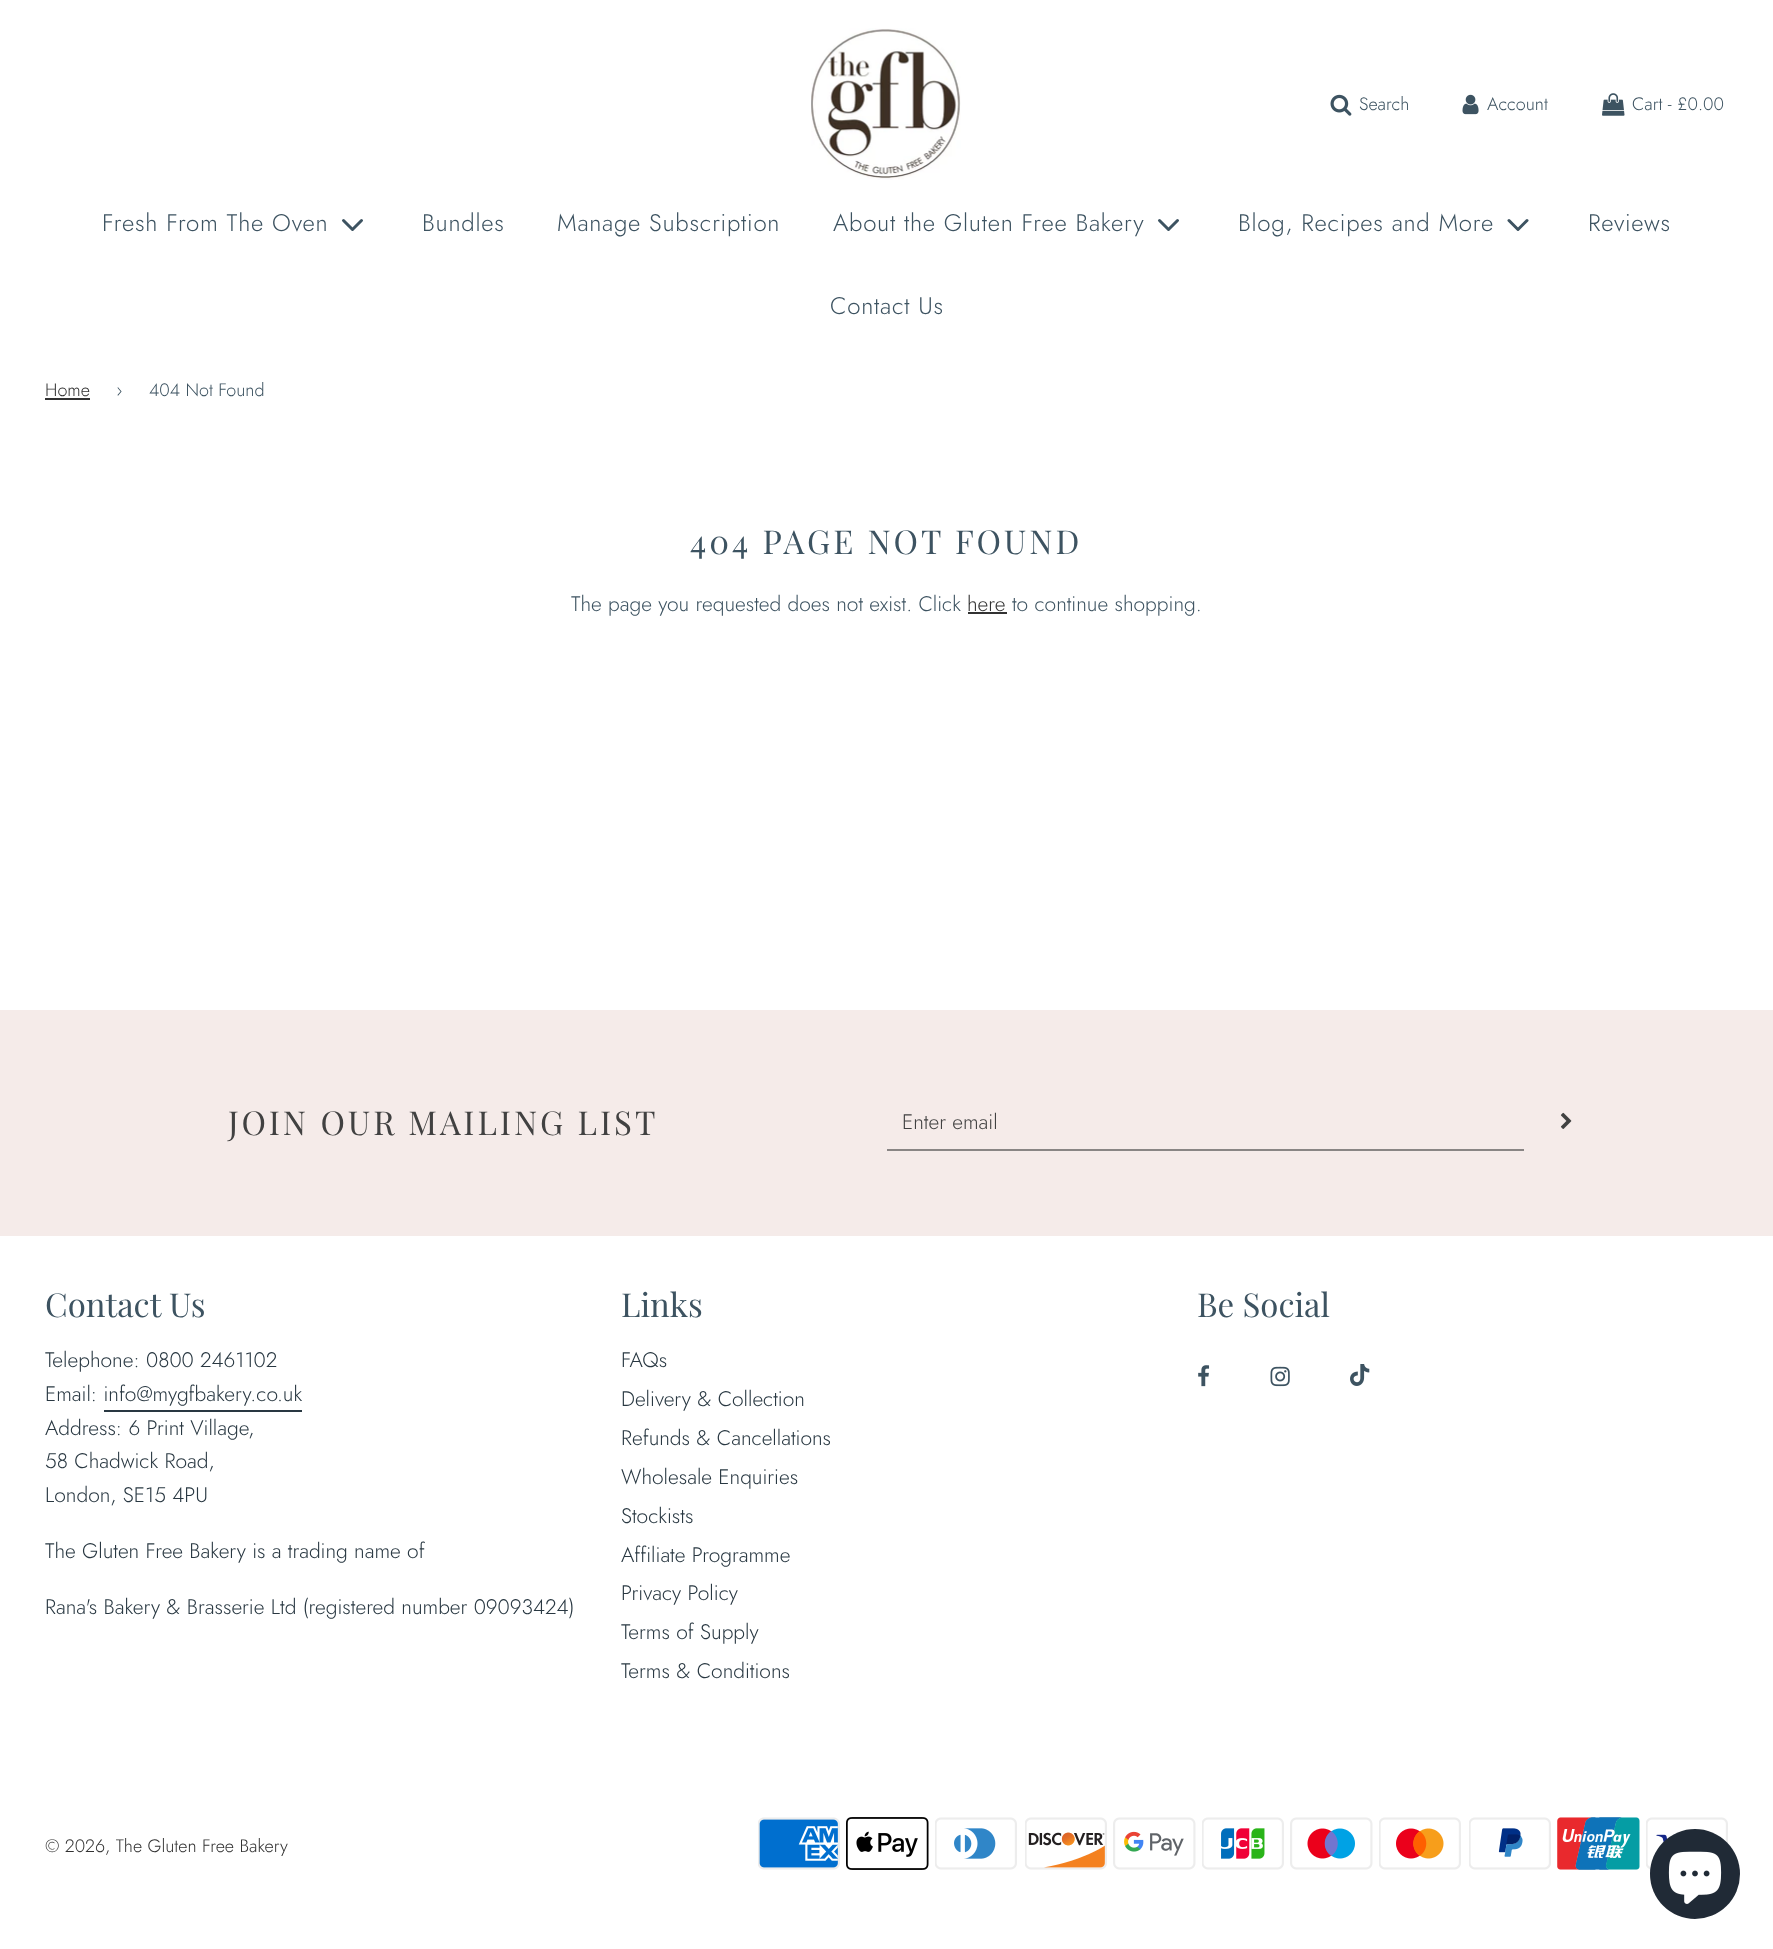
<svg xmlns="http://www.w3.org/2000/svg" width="1773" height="1949">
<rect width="100%" height="100%" fill="#fff"/>
<image x="811" y="28" width="150" height="152" href="media/1.png"/>
<image x="1330" y="94" width="22" height="22" href="media/2.png"/>
<text x="1359" y="110" style="font-family:Jost;font-size:18px;font-weight:300;fill:#3d5361">Search</text>
<image x="1462" y="94" width="17" height="21" href="media/3.png"/>
<text x="1487" y="110" style="font-family:Jost;font-size:18px;font-weight:300;fill:#3d5361">Account</text>
<image x="1602" y="93" width="23" height="23" href="media/4.png"/>
<text x="1632" y="110" style="font-family:Jost;font-size:18px;font-weight:300;fill:#3d5361">Cart - £0.00</text>
<text x="102" y="231" style="font-family:Jost;font-size:24px;font-weight:300;letter-spacing:0.75px;fill:#3d5361">Fresh From The Oven</text>
<path d="M343.5 220.5l9 9l9-9" fill="none" stroke="#3d5361" stroke-width="3" stroke-linecap="round" stroke-linejoin="round"/>
<text x="422" y="231" style="font-family:Jost;font-size:24px;font-weight:300;letter-spacing:0.75px;fill:#3d5361">Bundles</text>
<text x="557" y="231" style="font-family:Jost;font-size:24px;font-weight:300;letter-spacing:0.75px;fill:#3d5361">Manage Subscription</text>
<text x="833" y="231" style="font-family:Jost;font-size:24px;font-weight:300;letter-spacing:0.75px;fill:#3d5361">About the Gluten Free Bakery</text>
<path d="M1159.5 220.5l9 9l9-9" fill="none" stroke="#3d5361" stroke-width="3" stroke-linecap="round" stroke-linejoin="round"/>
<text x="1238" y="231" style="font-family:Jost;font-size:24px;font-weight:300;letter-spacing:0.75px;fill:#3d5361">Blog, Recipes and More</text>
<path d="M1509 220.5l9 9l9-9" fill="none" stroke="#3d5361" stroke-width="3" stroke-linecap="round" stroke-linejoin="round"/>
<text x="1588" y="231" style="font-family:Jost;font-size:24px;font-weight:300;letter-spacing:0.75px;fill:#3d5361">Reviews</text>
<text x="830" y="314" style="font-family:Jost;font-size:24px;font-weight:300;letter-spacing:0.75px;fill:#3d5361">Contact Us</text>
<text x="45" y="396" style="font-family:Jost;font-size:18px;font-weight:300;fill:#323232">Home</text>
<rect x="45" y="398" width="45" height="2" fill="#323232"/>
<text x="116" y="396" style="font-family:Jost;font-size:18px;font-weight:300;fill:#3d5361">›</text>
<text x="149" y="396" style="font-family:Jost;font-size:18px;font-weight:300;fill:#3d5361">404 Not Found</text>
<text x="690" y="554" style="font-family:Playfair Display;font-size:33px;letter-spacing:3px;fill:#3d5361">404 PAGE NOT FOUND</text>
<text x="571" y="611" style="font-family:Jost;font-size:21px;font-weight:300;fill:#3d5361">The page you requested does not exist. Click</text>
<text x="967" y="611" style="font-family:Jost;font-size:21px;font-weight:300;fill:#323232">here</text>
<rect x="968" y="612" width="39" height="2" fill="#323232"/>
<text x="1012" y="611" style="font-family:Jost;font-size:21px;font-weight:300;fill:#3d5361">to continue shopping.</text>
<rect y="1010" width="1773" height="226" fill="#f5ebe9"/>
<text x="228" y="1135" style="font-family:Playfair Display;font-size:33px;letter-spacing:3px;fill:#414141">JOIN OUR MAILING LIST</text>
<rect x="887" y="1149" width="637" height="2" fill="#898584"/>
<text x="902" y="1129" style="font-family:Jost;font-size:21px;font-weight:300;fill:#414141">Enter email</text>
<image x="1560" y="1112" width="12" height="17" href="media/5.png"/>
<text x="45" y="1317" style="font-family:Playfair Display;font-size:33px;fill:#3d5361">Contact Us</text>
<text x="45" y="1367" style="font-family:Jost;font-size:21px;font-weight:300;fill:#293842">Telephone: 0800 2461102</text>
<text x="45" y="1401" style="font-family:Jost;font-size:21px;font-weight:300;fill:#293842">Email: info@mygfbakery.co.uk</text>
<rect x="104" y="1410" width="198" height="2" fill="#293842"/>
<text x="45" y="1435" style="font-family:Jost;font-size:21px;font-weight:300;fill:#293842">Address: 6 Print Village,</text>
<text x="45" y="1468" style="font-family:Jost;font-size:21px;font-weight:300;fill:#293842">58 Chadwick Road,</text>
<text x="45" y="1502" style="font-family:Jost;font-size:21px;font-weight:300;fill:#293842">London, SE15 4PU</text>
<text x="45" y="1558" style="font-family:Jost;font-size:21px;font-weight:300;fill:#293842">The Gluten Free Bakery is a trading name of</text>
<text x="45" y="1614" style="font-family:Jost;font-size:21px;font-weight:300;fill:#293842">Rana's Bakery &amp; Brasserie Ltd (registered number 09093424)</text>
<text x="621" y="1317" style="font-family:Playfair Display;font-size:33px;fill:#3d5361">Links</text>
<text x="621" y="1367" style="font-family:Jost;font-size:21px;font-weight:300;fill:#293842">FAQs</text>
<text x="621" y="1406" style="font-family:Jost;font-size:21px;font-weight:300;fill:#293842">Delivery &amp; Collection</text>
<text x="621" y="1445" style="font-family:Jost;font-size:21px;font-weight:300;fill:#293842">Refunds &amp; Cancellations</text>
<text x="621" y="1484" style="font-family:Jost;font-size:21px;font-weight:300;fill:#293842">Wholesale Enquiries</text>
<text x="621" y="1523" style="font-family:Jost;font-size:21px;font-weight:300;fill:#293842">Stockists</text>
<text x="621" y="1562" style="font-family:Jost;font-size:21px;font-weight:300;fill:#293842">Affiliate Programme</text>
<text x="621" y="1600" style="font-family:Jost;font-size:21px;font-weight:300;fill:#293842">Privacy Policy</text>
<text x="621" y="1639" style="font-family:Jost;font-size:21px;font-weight:300;fill:#293842">Terms of Supply</text>
<text x="621" y="1678" style="font-family:Jost;font-size:21px;font-weight:300;fill:#293842">Terms &amp; Conditions</text>
<text x="1197" y="1317" style="font-family:Playfair Display;font-size:33px;fill:#3d5361">Be Social</text>
<image x="1198" y="1365" width="12" height="22" href="media/6.png"/>
<image x="1270" y="1366" width="20" height="21" href="media/7.png"/>
<image x="1350" y="1364" width="20" height="22" href="media/8.png"/>
<text x="45" y="1852" style="font-family:Jost;font-size:18px;font-weight:300;fill:#323232">© 2026, The Gluten Free Bakery</text>
<image x="758" y="1817" width="82" height="53" href="media/9.png"/>
<image x="846" y="1817" width="83" height="53" href="media/10.png"/>
<image x="935" y="1817" width="82" height="53" href="media/11.png"/>
<image x="1025" y="1817" width="82" height="53" href="media/12.png"/>
<image x="1113" y="1817" width="83" height="53" href="media/13.png"/>
<image x="1202" y="1817" width="82" height="53" href="media/14.png"/>
<image x="1290" y="1817" width="83" height="53" href="media/15.png"/>
<image x="1379" y="1817" width="82" height="53" href="media/16.png"/>
<image x="1469" y="1817" width="82" height="53" href="media/17.png"/>
<image x="1557" y="1817" width="83" height="53" href="media/18.png"/>
<image x="1646" y="1817" width="82" height="53" href="media/19.png"/>
<circle cx="1695" cy="1874" r="45" fill="#202a36"/>
<image x="1668" y="1851" width="54" height="53" href="media/20.png"/>
</svg>
